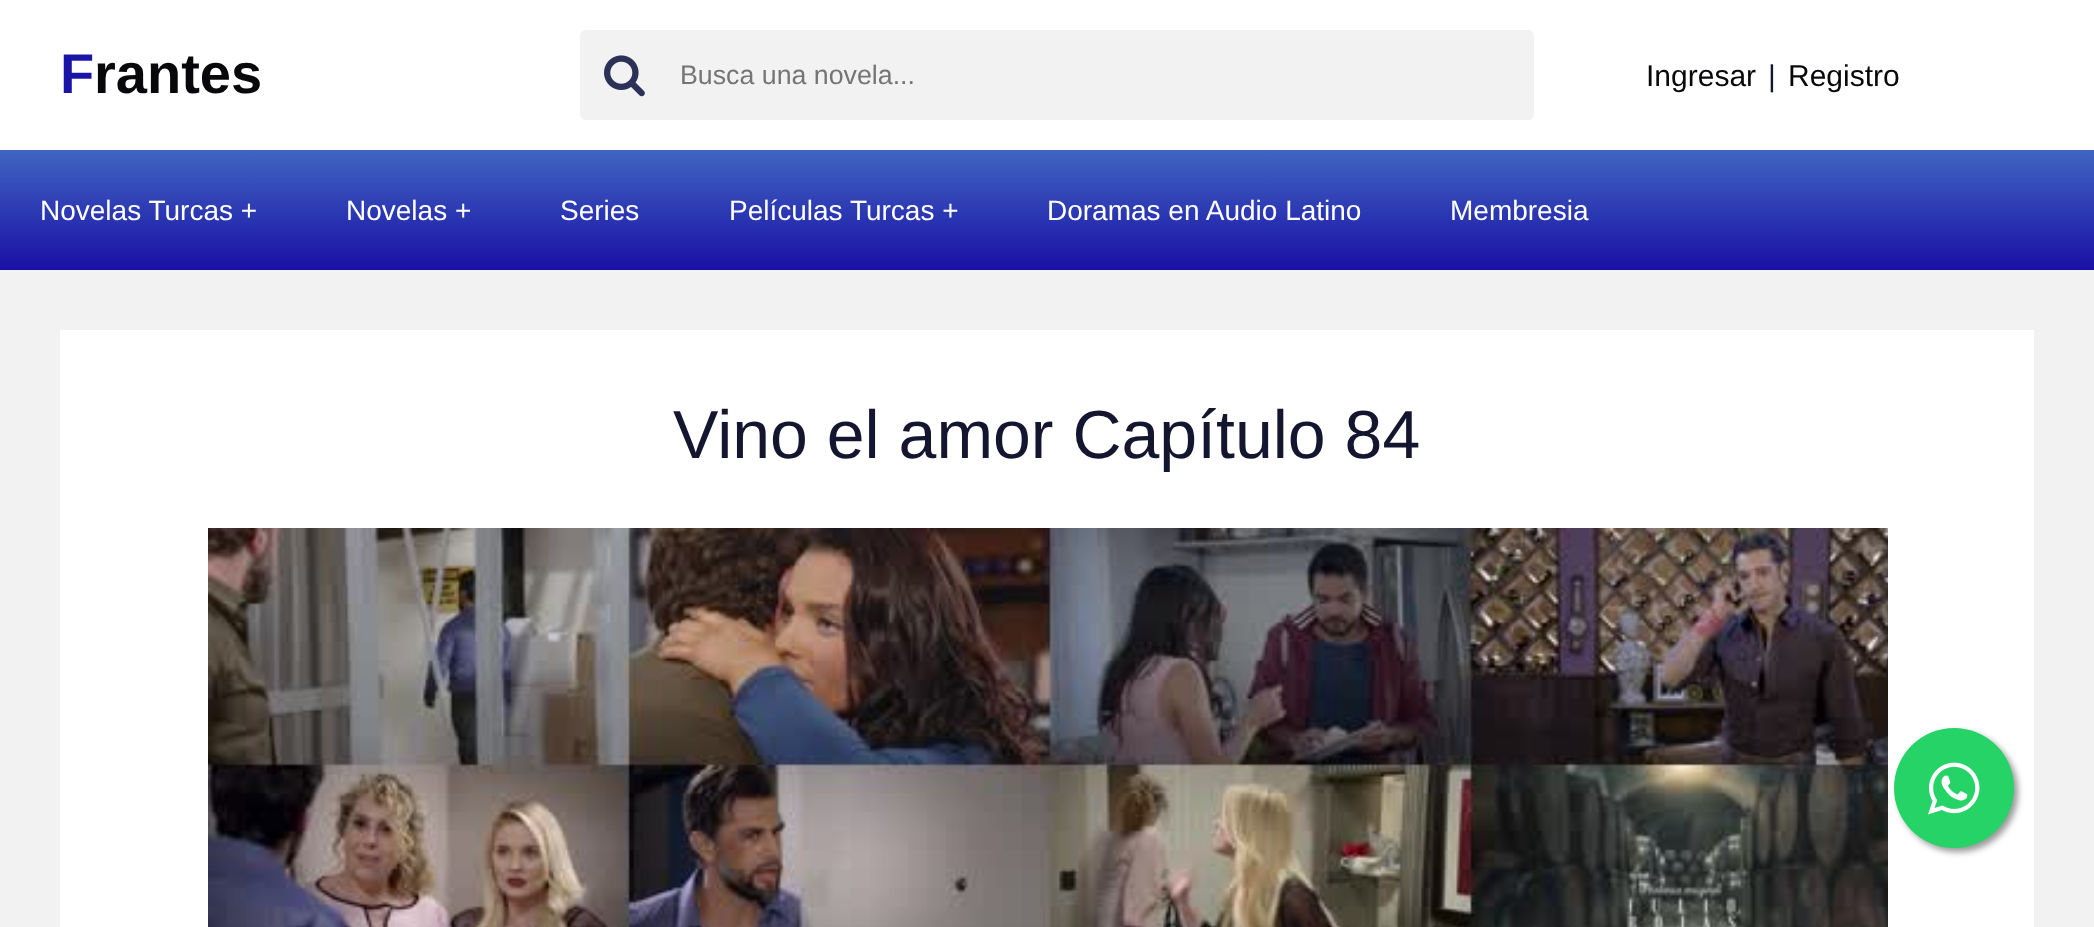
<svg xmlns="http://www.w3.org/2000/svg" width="2094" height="927">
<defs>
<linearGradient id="g1" gradientUnits="userSpaceOnUse" x1="1047" y1="150" x2="1047" y2="270"><stop offset="0" stop-color="#4065c2"/><stop offset="1" stop-color="#1910a5"/></linearGradient>
</defs>
<rect width="100%" height="100%" fill="#fff"/>
<text x="60" y="93" style="font-family:Liberation Sans;font-size:56px;font-weight:bold;fill:#1b15a7">F</text>
<text x="94" y="93" style="font-family:Liberation Sans;font-size:56px;font-weight:bold;fill:#08080a">rantes</text>
<rect x="580" y="30" width="954" height="90" rx="6" fill="#f2f2f2"/>
<image x="604" y="55" width="41" height="42" href="media/1.png"/>
<text x="680" y="84" style="font-family:Liberation Sans;font-size:26.75px;fill:#757575">Busca una novela...</text>
<text x="1646" y="86" style="font-family:Liberation Sans;font-size:30px;fill:#08080a">Ingresar</text>
<text x="1768" y="86" style="font-family:Liberation Sans;font-size:30px;fill:#14162f">|</text>
<text x="1788" y="86" style="font-family:Liberation Sans;font-size:30px;fill:#08080a">Registro</text>
<rect y="150" width="2094" height="120" fill="url(#g1)"/>
<text x="40" y="220" style="font-family:Liberation Sans;font-size:28px;fill:#fff">Novelas Turcas +</text>
<text x="346" y="220" style="font-family:Liberation Sans;font-size:28px;fill:#fff">Novelas +</text>
<text x="560" y="220" style="font-family:Liberation Sans;font-size:28px;fill:#fff">Series</text>
<text x="729" y="220" style="font-family:Liberation Sans;font-size:28px;fill:#fff">Películas Turcas +</text>
<text x="1047" y="220" style="font-family:Liberation Sans;font-size:28px;fill:#fff">Doramas en Audio Latino</text>
<text x="1450" y="220" style="font-family:Liberation Sans;font-size:28px;fill:#fff">Membresia</text>
<rect y="270" width="2094" height="657" fill="#f2f2f2"/>
<rect x="60" y="330" width="1974" height="597" fill="#fff"/>
<text x="673" y="458" style="font-family:Liberation Sans;font-size:68px;fill:#14162f">Vino el amor Capítulo 84</text>
<image x="208" y="528" width="1680" height="399" href="media/2.png"/>
<rect x="1898" y="732" width="120" height="120" rx="60" fill="#999" filter="blur(3px)"/>
<circle cx="1954" cy="788" r="60" fill="#25d366"/>
<image x="1928" y="762" width="52" height="53" href="media/3.png"/>
</svg>
